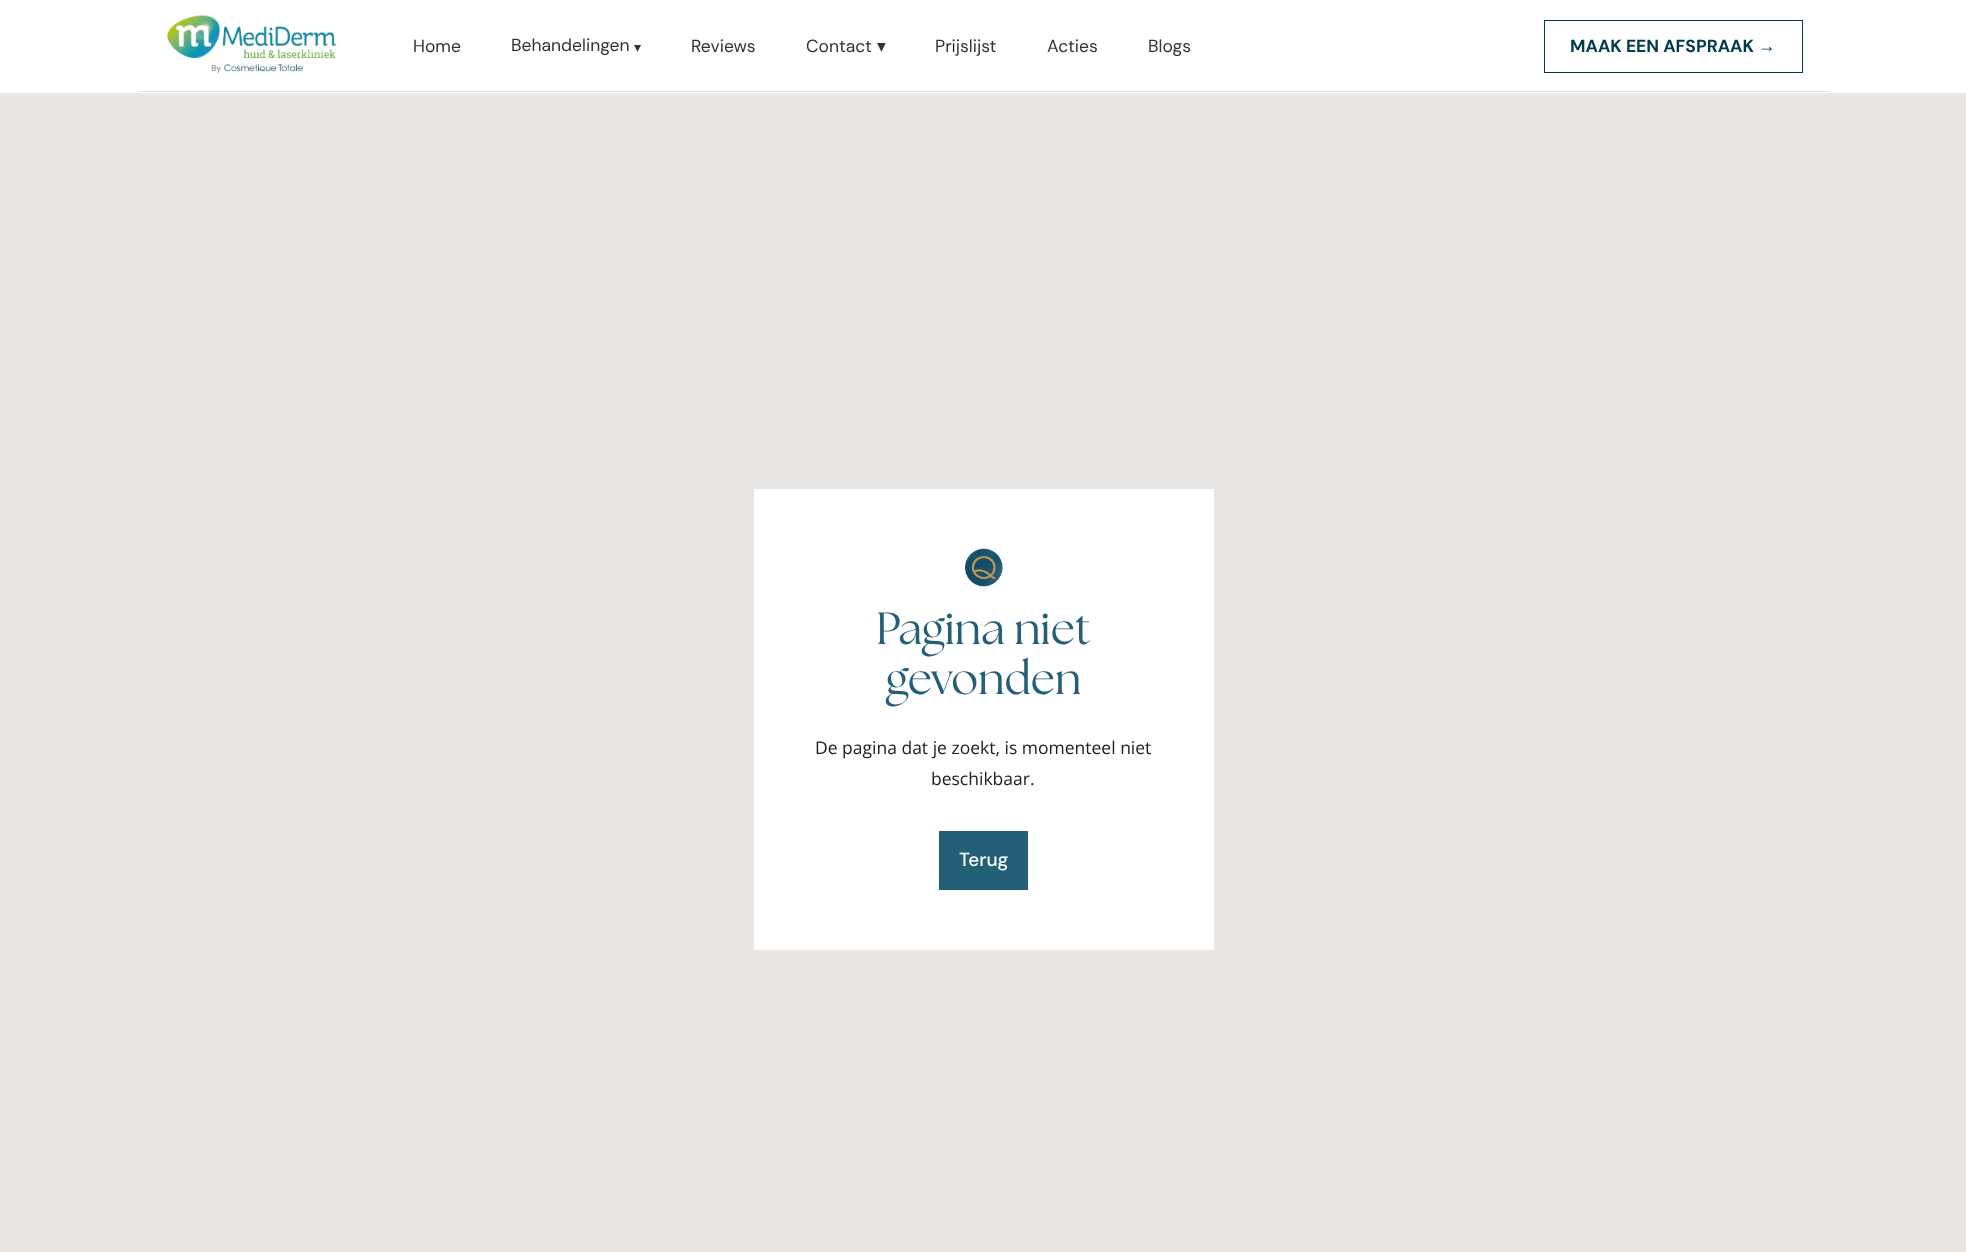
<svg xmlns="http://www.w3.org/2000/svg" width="1966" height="1252">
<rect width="100%" height="100%" fill="#fff"/>
<rect x="140" y="91" width="1688" height="1" fill="#ddd"/>
<image x="166" y="15" width="171" height="59" href="media/1.png"/>
<text x="413" y="52" style="font-family:DM Sans;font-size:17.5px;fill:#333">Home</text>
<text x="511" y="51" style="font-family:DM Sans;font-size:17.5px;fill:#333">Behandelingen</text>
<text x="634" y="52" style="font-family:DejaVu Sans;font-size:14px;fill:#333">▾</text>
<text x="691" y="52" style="font-family:DM Sans;font-size:17.5px;fill:#333">Reviews</text>
<text x="806" y="52" style="font-family:DM Sans;font-size:17.5px;fill:#333">Contact</text>
<text x="877" y="52" style="font-family:DejaVu Sans;font-size:17.5px;fill:#333">▾</text>
<text x="935" y="52" style="font-family:DM Sans;font-size:17.5px;fill:#333">Prijslijst</text>
<text x="1047" y="52" style="font-family:DM Sans;font-size:17.5px;fill:#333">Acties</text>
<text x="1148" y="52" style="font-family:DM Sans;font-size:17.5px;fill:#333">Blogs</text>
<rect x="1544.5" y="20.5" width="258" height="52" fill="none" stroke="#003b4a"/>
<text x="1570" y="52" style="font-family:DM Sans;font-size:17.5px;font-weight:bold;fill:#003b4a">MAAK EEN AFSPRAAK</text>
<text x="1758" y="52" style="font-family:Liberation Sans;font-size:17.5px;font-weight:bold;fill:#003b4a">→</text>
<rect y="93" width="1966" height="1159" fill="#eae6e3"/>
<rect x="753.5" y="488.5" width="461" height="462" fill="#fff" stroke="#e6e6e6"/>
<image x="965" y="548" width="38" height="39" href="media/2.png"/>
<text x="876" y="644" style="font-family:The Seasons;font-size:45px;fill:#235f77">Pagina niet</text>
<text x="885" y="694" style="font-family:The Seasons;font-size:45px;fill:#235f77">gevonden</text>
<text x="815" y="754" style="font-family:Open Sans;font-size:17.5px;fill:#202020">De pagina dat je zoekt, is momenteel niet</text>
<text x="931" y="785" style="font-family:Open Sans;font-size:17.5px;fill:#202020">beschikbaar.</text>
<rect x="939" y="831" width="89" height="59" fill="#235f77"/>
<text x="959" y="866" style="font-family:DM Sans;font-size:19px;font-weight:500;fill:#fff">Terug</text>
</svg>
